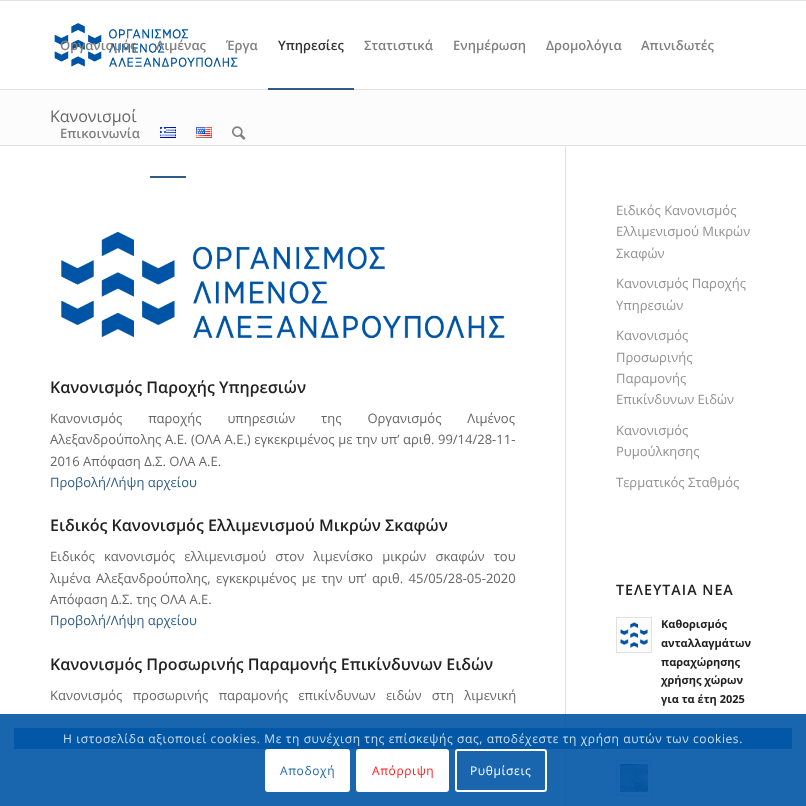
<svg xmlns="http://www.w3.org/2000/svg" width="806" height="806">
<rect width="100%" height="100%" fill="#fff"/>
<rect width="806" height="1" fill="#e1e1e1"/>
<rect y="89" width="806" height="1" fill="#e1e1e1"/>
<image x="54" y="23" width="184" height="44" href="media/1.png"/>
<text x="60" y="50" style="font-family:Open Sans;font-size:13px;font-weight:600;fill:#808080">Οργανισμός</text>
<text x="156" y="50" style="font-family:Open Sans;font-size:13px;font-weight:600;fill:#808080">Λιμένας</text>
<text x="226" y="50" style="font-family:Open Sans;font-size:13px;font-weight:600;fill:#808080">Έργα</text>
<text x="278" y="50" style="font-family:Open Sans;font-size:13px;font-weight:600;fill:#333">Υπηρεσίες</text>
<rect x="268" y="88" width="86" height="2" fill="#2d5c88"/>
<text x="364" y="50" style="font-family:Open Sans;font-size:13px;font-weight:600;fill:#808080">Στατιστικά</text>
<text x="453" y="50" style="font-family:Open Sans;font-size:13px;font-weight:600;fill:#808080">Ενημέρωση</text>
<text x="546" y="50" style="font-family:Open Sans;font-size:13px;font-weight:600;fill:#808080">Δρομολόγια</text>
<text x="641" y="50" style="font-family:Open Sans;font-size:13px;font-weight:600;fill:#808080">Απινιδωτές</text>
<rect y="90" width="806" height="55" fill="#fcfcfc"/>
<text x="60" y="138" style="font-family:Open Sans;font-size:13px;font-weight:600;fill:#808080">Επικοινωνία</text>
<image x="160" y="127" width="16" height="11" href="media/2.png"/>
<rect x="150" y="176" width="36" height="2" fill="#2d5c88"/>
<image x="196" y="127" width="16" height="11" href="media/3.png"/>
<image x="232" y="126" width="14" height="14" href="media/4.png"/>
<text x="50" y="122" style="font-family:Open Sans;font-size:16px;fill:#666">Κανονισμοί</text>
<rect y="145" width="806" height="1" fill="#e1e1e1"/>
<rect x="565" y="146" width="1" height="660" fill="#e1e1e1"/>
<image x="61" y="232" width="444" height="107" href="media/5.png"/>
<text x="50" y="393" style="font-family:Open Sans;font-size:16px;font-weight:600;fill:#222">Κανονισμός Παροχής Υπηρεσιών</text>
<text x="50" y="423" word-spacing="22.5" style="font-family:Open Sans;font-size:13px;fill:#666">Κανονισμός παροχής υπηρεσιών της Οργανισμός Λιμένος</text>
<text x="50" y="444" word-spacing="0.25" style="font-family:Open Sans;font-size:13px;fill:#666">Αλεξανδρούπολης Α.Ε. (ΟΛΑ Α.Ε.) εγκεκριμένος με την υπ’ αριθ. 99/14/28-11-</text>
<text x="50" y="466" style="font-family:Open Sans;font-size:13px;fill:#666">2016 Απόφαση Δ.Σ. ΟΛΑ Α.Ε.</text>
<text x="50" y="487" style="font-family:Open Sans;font-size:13px;fill:#2d5c88">Προβολή/Λήψη αρχείου</text>
<text x="50" y="531" style="font-family:Open Sans;font-size:16px;font-weight:600;fill:#222">Ειδικός Κανονισμός Ελλιμενισμού Μικρών Σκαφών</text>
<text x="50" y="561" word-spacing="5.75" style="font-family:Open Sans;font-size:13px;fill:#666">Ειδικός κανονισμός ελλιμενισμού στον λιμενίσκο μικρών σκαφών του</text>
<text x="50" y="583" word-spacing="2" style="font-family:Open Sans;font-size:13px;fill:#666">λιμένα Αλεξανδρούπολης, εγκεκριμένος με την υπ’ αριθ. 45/05/28-05-2020</text>
<text x="50" y="604" style="font-family:Open Sans;font-size:13px;fill:#666">Απόφαση Δ.Σ. της ΟΛΑ Α.Ε.</text>
<text x="50" y="625" style="font-family:Open Sans;font-size:13px;fill:#2d5c88">Προβολή/Λήψη αρχείου</text>
<text x="50" y="670" style="font-family:Open Sans;font-size:16px;font-weight:600;fill:#222">Κανονισμός Προσωρινής Παραμονής Επικίνδυνων Ειδών</text>
<text x="50" y="700" word-spacing="7" style="font-family:Open Sans;font-size:13px;fill:#666">Κανονισμός προσωρινής παραμονής επικίνδυνων ειδών στη λιμενική</text>
<text x="616" y="215" style="font-family:Open Sans;font-size:13px;fill:#919191">Ειδικός Κανονισμός</text>
<text x="616" y="236" style="font-family:Open Sans;font-size:13px;fill:#919191">Ελλιμενισμού Μικρών</text>
<text x="616" y="258" style="font-family:Open Sans;font-size:13px;fill:#919191">Σκαφών</text>
<text x="616" y="288" style="font-family:Open Sans;font-size:13px;fill:#919191">Κανονισμός Παροχής</text>
<text x="616" y="310" style="font-family:Open Sans;font-size:13px;fill:#919191">Υπηρεσιών</text>
<text x="616" y="340" style="font-family:Open Sans;font-size:13px;fill:#919191">Κανονισμός</text>
<text x="616" y="362" style="font-family:Open Sans;font-size:13px;fill:#919191">Προσωρινής</text>
<text x="616" y="383" style="font-family:Open Sans;font-size:13px;fill:#919191">Παραμονής</text>
<text x="616" y="404" style="font-family:Open Sans;font-size:13px;fill:#919191">Επικίνδυνων Ειδών</text>
<text x="616" y="435" style="font-family:Open Sans;font-size:13px;fill:#919191">Κανονισμός</text>
<text x="616" y="456" style="font-family:Open Sans;font-size:13px;fill:#919191">Ρυμούλκησης</text>
<text x="616" y="487" style="font-family:Open Sans;font-size:13px;fill:#919191">Τερματικός Σταθμός</text>
<text x="616" y="595" style="font-family:Open Sans;font-size:14.25px;font-weight:600;letter-spacing:1px;fill:#222">ΤΕΛΕΥΤΑΙΑ ΝΕΑ</text>
<rect x="616.5" y="617.5" width="35" height="35" fill="#fcfcfc" stroke="#e1e1e1"/>
<image x="620" y="622" width="28" height="26" href="media/6.png"/>
<text x="661" y="628" style="font-family:Open Sans;font-size:11px;font-weight:bold;fill:#222">Καθορισμός</text>
<text x="661" y="647" style="font-family:Open Sans;font-size:11px;font-weight:bold;fill:#222">ανταλλαγμάτων</text>
<text x="661" y="666" style="font-family:Open Sans;font-size:11px;font-weight:bold;fill:#222">παραχώρησης</text>
<text x="661" y="684" style="font-family:Open Sans;font-size:11px;font-weight:bold;fill:#222">χρήσης χώρων</text>
<text x="661" y="703" style="font-family:Open Sans;font-size:11px;font-weight:bold;fill:#222">για τα έτη 2025</text>
<rect x="616.5" y="760.5" width="35" height="35" fill="#fcfcfc" stroke="#e1e1e1"/>
<image x="620" y="764" width="28" height="28" href="media/7.png"/>
<rect y="714" width="806" height="92" fill="#0055a5e6"/>
<rect x="14" y="728" width="778" height="21" fill="#0055a5e6"/>
<text x="63" y="743" style="font-family:Open Sans;font-size:12px;letter-spacing:0.6px;fill:#cfdfee">Η ιστοσελίδα αξιοποιεί cookies. Με τη συνέχιση της επίσκεψής σας, αποδέχεστε τη χρήση αυτών των cookies.</text>
<rect x="265" y="749" width="85" height="43" rx="3" fill="#fff"/>
<text x="280" y="775" style="font-family:Open Sans;font-size:12px;letter-spacing:0.6px;fill:#1a66ae">Αποδοχή</text>
<rect x="357" y="750" width="91" height="41" rx="2" fill="#fff" stroke="#fff" stroke-width="2"/>
<text x="372" y="775" style="font-family:Open Sans;font-size:12px;letter-spacing:0.6px;fill:#ff1a1a">Απόρριψη</text>
<rect x="456" y="750" width="90" height="41" rx="2" fill="none" stroke="#fff" stroke-width="2"/>
<text x="470" y="775" style="font-family:Open Sans;font-size:12px;letter-spacing:0.6px;fill:#fff">Ρυθμίσεις</text>
</svg>
